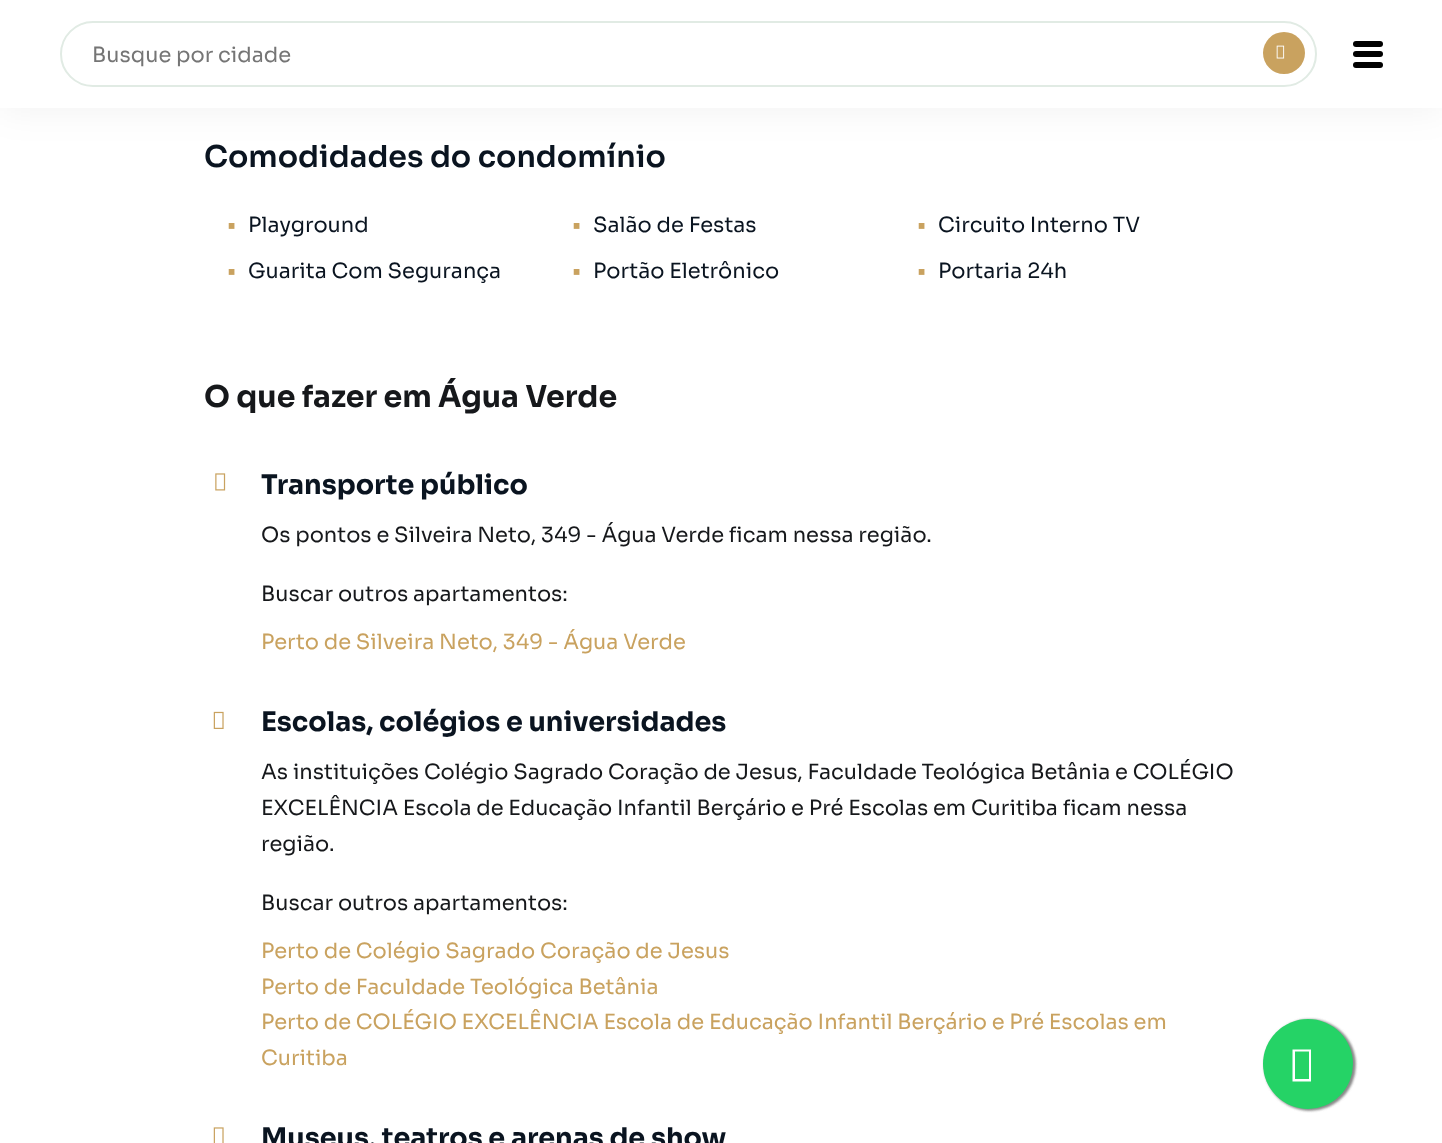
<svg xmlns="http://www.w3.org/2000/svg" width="1442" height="1143">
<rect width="100%" height="100%" fill="#fff"/>
<rect y="3" width="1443" height="108" fill="#0000000d" filter="blur(18px)"/>
<rect width="1442" height="108" fill="#fff"/>
<rect x="61" y="22" width="1255" height="64" rx="32" fill="none" stroke="#e1ebe4" stroke-width="2"/>
<text x="92" y="62" style="font-family:Sora;font-size:21px;fill:#757575">Busque por cidade</text>
<circle cx="1284" cy="53" r="21" fill="#c9a25f"/>
<image x="1276" y="45" width="9" height="14" href="media/1.png"/>
<rect x="1353" y="41" width="30" height="6" rx="3" fill="#000"/>
<rect x="1353" y="51" width="30" height="6" rx="3" fill="#000"/>
<rect x="1353" y="62" width="30" height="6" rx="3" fill="#000"/>
<text x="204" y="167" style="font-family:Sora;font-size:30px;font-weight:600;fill:#0a1420">Comodidades do condomínio</text>
<text x="227" y="232" style="font-family:Sora;font-size:21px;font-weight:bold;fill:#c9a25f">•</text>
<text x="248" y="232" style="font-family:Sora;font-size:21px;fill:#0a1420">Playground</text>
<text x="572" y="232" style="font-family:Sora;font-size:21px;font-weight:bold;fill:#c9a25f">•</text>
<text x="593" y="232" style="font-family:Sora;font-size:21px;fill:#0a1420">Salão de Festas</text>
<text x="917" y="232" style="font-family:Sora;font-size:21px;font-weight:bold;fill:#c9a25f">•</text>
<text x="938" y="232" style="font-family:Sora;font-size:21px;fill:#0a1420">Circuito Interno TV</text>
<text x="227" y="278" style="font-family:Sora;font-size:21px;font-weight:bold;fill:#c9a25f">•</text>
<text x="248" y="278" style="font-family:Sora;font-size:21px;fill:#0a1420">Guarita Com Segurança</text>
<text x="572" y="278" style="font-family:Sora;font-size:21px;font-weight:bold;fill:#c9a25f">•</text>
<text x="593" y="278" style="font-family:Sora;font-size:21px;fill:#0a1420">Portão Eletrônico</text>
<text x="917" y="278" style="font-family:Sora;font-size:21px;font-weight:bold;fill:#c9a25f">•</text>
<text x="938" y="278" style="font-family:Sora;font-size:21px;fill:#0a1420">Portaria 24h</text>
<text x="204" y="407" style="font-family:Sora;font-size:30px;font-weight:bold;fill:#16181b">O que fazer em Água Verde</text>
<image x="215" y="473" width="11" height="18" href="media/2.png"/>
<text x="261" y="494" style="font-family:Sora;font-size:27px;font-weight:bold;fill:#0a1420">Transporte público</text>
<text x="261" y="542" style="font-family:Sora;font-size:21px;fill:#16181b">Os pontos e Silveira Neto, 349 - Água Verde ficam nessa região.</text>
<text x="261" y="601" style="font-family:Sora;font-size:21px;fill:#16181b">Buscar outros apartamentos:</text>
<text x="261" y="649" style="font-family:Sora;font-size:21px;fill:#c9a25f">Perto de Silveira Neto, 349 - Água Verde</text>
<image x="213" y="711" width="11" height="18" href="media/3.png"/>
<text x="261" y="731" style="font-family:Sora;font-size:27px;font-weight:bold;fill:#0a1420">Escolas, colégios e universidades</text>
<text x="261" y="779" style="font-family:Sora;font-size:21px;fill:#16181b">As instituições Colégio Sagrado Coração de Jesus, Faculdade Teológica Betânia e COLÉGIO</text>
<text x="261" y="815" style="font-family:Sora;font-size:21px;fill:#16181b">EXCELÊNCIA Escola de Educação Infantil Berçário e Pré Escolas em Curitiba ficam nessa</text>
<text x="261" y="851" style="font-family:Sora;font-size:21px;fill:#16181b">região.</text>
<text x="261" y="910" style="font-family:Sora;font-size:21px;fill:#16181b">Buscar outros apartamentos:</text>
<text x="261" y="958" style="font-family:Sora;font-size:21px;fill:#c9a25f">Perto de Colégio Sagrado Coração de Jesus</text>
<text x="261" y="994" style="font-family:Sora;font-size:21px;fill:#c9a25f">Perto de Faculdade Teológica Betânia</text>
<text x="261" y="1029" style="font-family:Sora;font-size:21px;fill:#c9a25f">Perto de COLÉGIO EXCELÊNCIA Escola de Educação Infantil Berçário e Pré Escolas em</text>
<text x="261" y="1065" style="font-family:Sora;font-size:21px;fill:#c9a25f">Curitiba</text>
<image x="213" y="1127" width="11" height="16" href="media/4.png"/>
<text x="261" y="1147" style="font-family:Sora;font-size:27px;font-weight:bold;fill:#0a1420">Museus, teatros e arenas de show</text>
<rect x="1265" y="1020" width="90" height="90" rx="45" fill="#888" filter="blur(1.5px)"/>
<rect x="1265" y="1020" width="90" height="90" rx="45" fill="#888" filter="blur(1.5px)"/>
<circle cx="1308" cy="1064" r="45" fill="#25d366"/>
<path d="M1292.5 1081.5v-32h18.5v32zm2.5-2.5h14v-27.5h-14z" fill="#fff"/>
</svg>
